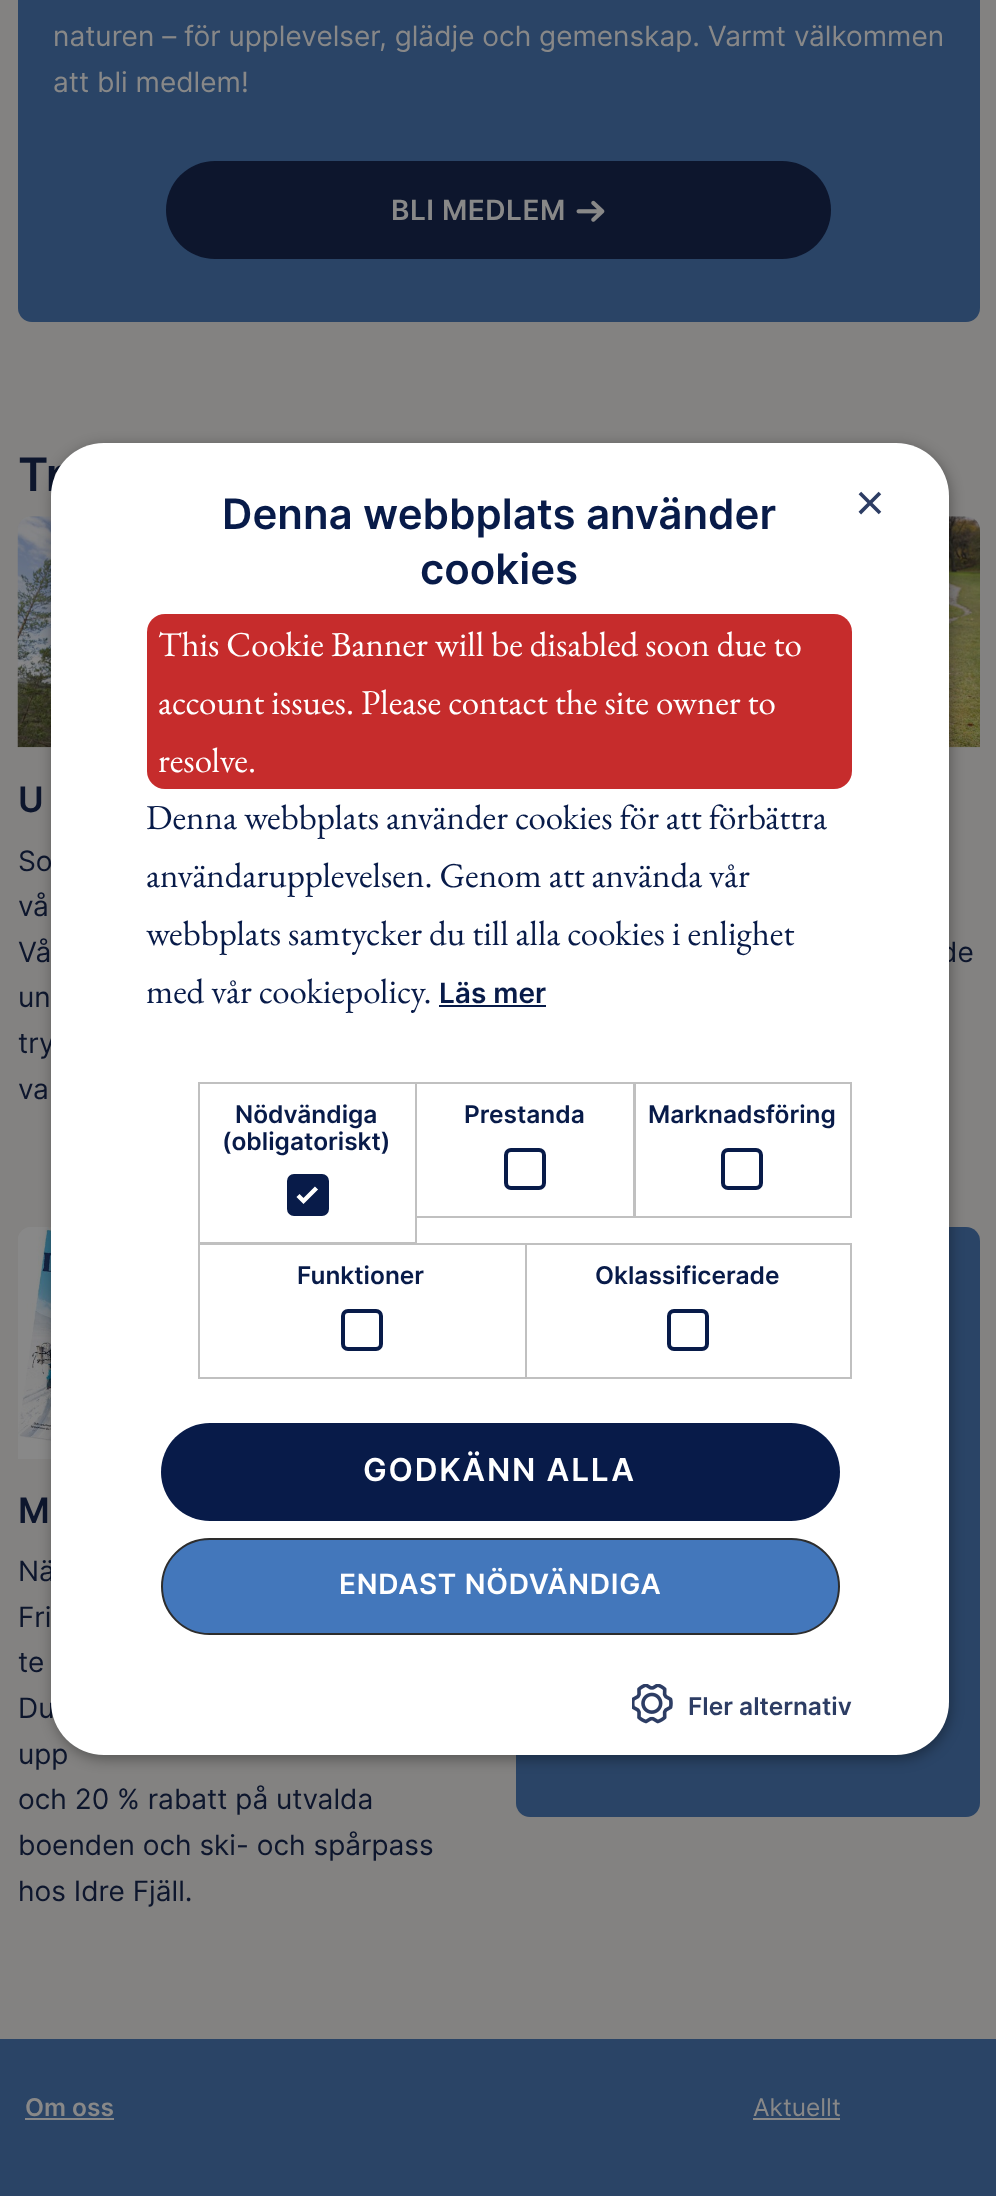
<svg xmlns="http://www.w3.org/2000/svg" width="996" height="2196">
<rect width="100%" height="100%" fill="#838281"/>
<rect x="18" y="-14" width="962" height="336" rx="14" fill="#2a4466"/>
<text x="53" y="46" style="font-family:Inter;font-size:28px;fill:#888">naturen – för upplevelser, glädje och gemenskap. Varmt välkommen</text>
<text x="53" y="92" style="font-family:Inter;font-size:28px;fill:#888">att bli medlem!</text>
<rect x="166" y="161" width="665" height="98" rx="49" fill="#0d162d"/>
<text x="391" y="220" style="font-family:Inter;font-size:28px;font-weight:600;letter-spacing:0.5px;fill:#888">BLI MEDLEM</text>
<image x="576" y="200" width="29" height="22" href="media/1.png"/>
<text x="18" y="491" style="font-family:Inter;font-size:46px;font-weight:600;fill:#0d162d">Tr</text>
<image x="17" y="516" width="34" height="232" href="media/2.png"/>
<text x="18" y="812" style="font-family:Inter;font-size:35px;font-weight:600;fill:#0d162d">U</text>
<text x="18" y="871" style="font-family:Inter;font-size:28px;fill:#0d162d">So</text>
<text x="18" y="916" style="font-family:Inter;font-size:28px;fill:#0d162d">vå</text>
<text x="18" y="962" style="font-family:Inter;font-size:28px;fill:#0d162d">Vå</text>
<text x="18" y="1007" style="font-family:Inter;font-size:28px;fill:#0d162d">un</text>
<text x="18" y="1053" style="font-family:Inter;font-size:28px;fill:#0d162d">try</text>
<text x="18" y="1099" style="font-family:Inter;font-size:28px;fill:#0d162d">va</text>
<image x="949" y="516" width="31" height="232" href="media/3.png"/>
<text x="940" y="962" style="font-family:Inter;font-size:28px;fill:#0d162d">de</text>
<image x="18" y="1227" width="33" height="232" href="media/4.png"/>
<text x="18" y="1523" style="font-family:Inter;font-size:35px;font-weight:600;fill:#0d162d">M</text>
<text x="18" y="1581" style="font-family:Inter;font-size:28px;fill:#0d162d">Nä</text>
<text x="18" y="1627" style="font-family:Inter;font-size:28px;fill:#0d162d">Fri</text>
<text x="18" y="1672" style="font-family:Inter;font-size:28px;fill:#0d162d">te</text>
<text x="18" y="1718" style="font-family:Inter;font-size:28px;fill:#0d162d">Du</text>
<text x="18" y="1764" style="font-family:Inter;font-size:28px;fill:#0d162d">upp</text>
<text x="18" y="1809" style="font-family:Inter;font-size:28px;fill:#0d162d">och 20 % rabatt på utvalda</text>
<text x="18" y="1855" style="font-family:Inter;font-size:28px;fill:#0d162d">boenden och ski- och spårpass</text>
<text x="18" y="1901" style="font-family:Inter;font-size:28px;fill:#0d162d">hos Idre Fjäll.</text>
<rect x="516" y="1227" width="464" height="590" rx="14" fill="#2a4466"/>
<rect x="53" y="446" width="897" height="1313" rx="53" fill="#00000059" filter="blur(7px)"/>
<rect x="51" y="443" width="898" height="1312" rx="53" fill="#fff"/>
<text x="222" y="529" style="font-family:Inter;font-size:42px;font-weight:600;fill:#081b49">Denna webbplats använder</text>
<text x="420" y="584" style="font-family:Inter;font-size:42px;font-weight:600;fill:#081b49">cookies</text>
<text x="855" y="520" style="font-family:Liberation Sans;font-size:51px;fill:#2d3d64">×</text>
<rect x="147" y="614" width="705" height="175" rx="18" fill="#c62c2c"/>
<text x="158" y="656" style="font-family:EB Garamond;font-size:35px;fill:#fff">This Cookie Banner will be disabled soon due to</text>
<text x="158" y="714" style="font-family:EB Garamond;font-size:35px;fill:#fff">account issues. Please contact the site owner to</text>
<text x="158" y="772" style="font-family:EB Garamond;font-size:35px;fill:#fff">resolve.</text>
<text x="146" y="829" style="font-family:EB Garamond;font-size:35px;fill:#081b49">Denna webbplats använder cookies för att förbättra</text>
<text x="146" y="887" style="font-family:EB Garamond;font-size:35px;fill:#081b49">användarupplevelsen. Genom att använda vår</text>
<text x="146" y="945" style="font-family:EB Garamond;font-size:35px;fill:#081b49">webbplats samtycker du till alla cookies i enlighet</text>
<text x="146" y="1003" style="font-family:EB Garamond;font-size:35px;fill:#081b49">med vår cookiepolicy.</text>
<text x="439" y="1003" style="font-family:Inter;font-size:28px;font-weight:600;fill:#081b49">Läs mer</text>
<rect x="439" y="1005" width="107" height="2" fill="#081b49"/>
<rect x="199" y="1083" width="217" height="160" fill="none" stroke="#c0c0c0" stroke-width="2"/>
<text x="235" y="1123" style="font-family:Inter;font-size:24.5px;font-weight:600;fill:#081b49">Nödvändiga</text>
<text x="222" y="1150" style="font-family:Inter;font-size:24.5px;font-weight:600;fill:#081b49">(obligatoriskt)</text>
<rect x="289" y="1176" width="38" height="38" rx="5" fill="#081b49" stroke="#081b49" stroke-width="4"/>
<path d="M298 1195.5l5.5 5.5l13-13" fill="none" stroke="#fff" stroke-width="4.4"/>
<rect x="416" y="1083" width="218" height="134" fill="none" stroke="#c0c0c0" stroke-width="2"/>
<text x="464" y="1123" style="font-family:Inter;font-size:24.5px;font-weight:600;fill:#081b49">Prestanda</text>
<rect x="506" y="1150" width="38" height="38" rx="5" fill="none" stroke="#081b49" stroke-width="4"/>
<rect x="635" y="1083" width="216" height="134" fill="none" stroke="#c0c0c0" stroke-width="2"/>
<text x="648" y="1123" style="font-family:Inter;font-size:24.5px;font-weight:600;fill:#081b49">Marknadsföring</text>
<rect x="723" y="1150" width="38" height="38" rx="5" fill="none" stroke="#081b49" stroke-width="4"/>
<rect x="199" y="1244" width="327" height="134" fill="none" stroke="#c0c0c0" stroke-width="2"/>
<text x="297" y="1284" style="font-family:Inter;font-size:24.5px;font-weight:600;fill:#081b49">Funktioner</text>
<rect x="343" y="1311" width="38" height="38" rx="5" fill="none" stroke="#081b49" stroke-width="4"/>
<rect x="526" y="1244" width="325" height="134" fill="none" stroke="#c0c0c0" stroke-width="2"/>
<text x="595" y="1284" style="font-family:Inter;font-size:24.5px;font-weight:600;fill:#081b49">Oklassificerade</text>
<rect x="669" y="1311" width="38" height="38" rx="5" fill="none" stroke="#081b49" stroke-width="4"/>
<rect x="161" y="1423" width="679" height="98" rx="49" fill="#081b49"/>
<text x="363" y="1481" style="font-family:Inter;font-size:31.5px;font-weight:600;letter-spacing:1.75px;fill:#fff">GODKÄNN ALLA</text>
<rect x="162" y="1539" width="677" height="95" rx="47.5" fill="#4377bb" stroke="#2d2d2d" stroke-width="2"/>
<text x="339" y="1594" style="font-family:Inter;font-size:28px;font-weight:600;letter-spacing:0.75px;fill:#fff">ENDAST NÖDVÄNDIGA</text>
<image x="632" y="1684" width="41" height="40" href="media/5.png"/>
<text x="688" y="1715" style="font-family:Inter;font-size:24.5px;font-weight:600;fill:#2d3d64">Fler alternativ</text>
<rect y="2039" width="996" height="157" fill="#2a4466"/>
<text x="25" y="2116" style="font-family:Inter;font-size:24.5px;font-weight:600;fill:#888">Om oss</text>
<rect x="25" y="2118" width="89" height="2" fill="#888"/>
<text x="753" y="2116" style="font-family:Inter;font-size:24.5px;fill:#888">Aktuellt</text>
<rect x="753" y="2118" width="87" height="2" fill="#888"/>
</svg>
